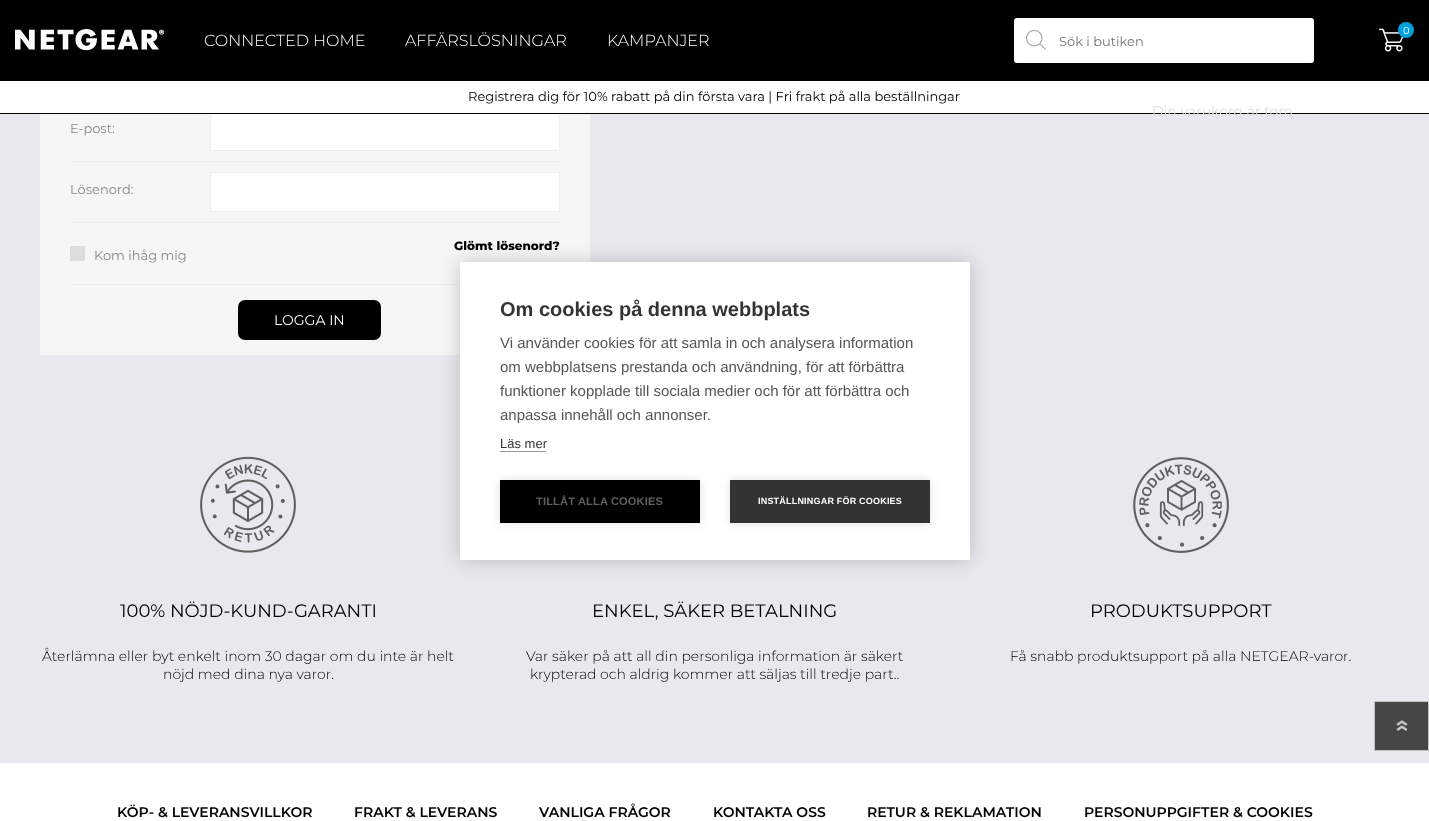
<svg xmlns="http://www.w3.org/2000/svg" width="1429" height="821">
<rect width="100%" height="100%" fill="#e8e9ee"/>
<rect width="1429" height="81" fill="#000"/>
<image x="15" y="29" width="149" height="22" href="media/1.png"/>
<text x="204" y="46" style="font-family:Montserrat;font-size:16px;font-weight:300;fill:#fff">CONNECTED HOME</text>
<text x="405" y="46" style="font-family:Montserrat;font-size:16px;font-weight:300;fill:#fff">AFFÄRSLÖSNINGAR</text>
<text x="607" y="46" style="font-family:Montserrat;font-size:16px;font-weight:300;fill:#fff">KAMPANJER</text>
<rect x="1014" y="18" width="300" height="45" rx="3" fill="#fff"/>
<image x="1026" y="30" width="20" height="20" href="media/2.png"/>
<text x="1059" y="46" style="font-family:Montserrat;font-size:13px;fill:#757575">Sök i butiken</text>
<image x="1379" y="28" width="24" height="24" href="media/3.png"/>
<circle cx="1406" cy="30" r="8" fill="#00a1de"/>
<text x="1403" y="34" style="font-family:Montserrat;font-size:10px;fill:#fff">0</text>
<rect x="40" y="114" width="550" height="241" fill="#f6f6f6"/>
<rect x="211" y="114" width="348" height="36" fill="#fff"/>
<rect x="210.5" y="111.5" width="349" height="39" fill="none" stroke="#eee"/>
<rect y="81" width="1429" height="32" fill="#fff"/>
<rect y="113" width="1429" height="1" fill="#000"/>
<text x="1152" y="116" style="font-family:Montserrat;font-size:14px;fill:#dfdfe1">Din varukorg är tom</text>
<text x="468" y="101" style="font-family:Montserrat;font-size:13px;fill:#000">Registrera dig för 10% rabatt på din första vara | Fri frakt på alla beställningar</text>
<rect x="70" y="161" width="490" height="1" fill="#eee"/>
<text x="70" y="133" style="font-family:Montserrat;font-size:13px;fill:#888">E-post:</text>
<rect x="70" y="222" width="490" height="1" fill="#eee"/>
<text x="70" y="194" style="font-family:Montserrat;font-size:13px;fill:#888">Lösenord:</text>
<rect x="210.5" y="172.5" width="349" height="39" fill="#fff" stroke="#eee"/>
<rect x="70" y="284" width="390" height="1" fill="#eee"/>
<text x="454" y="250" style="font-family:Montserrat;font-size:12px;font-weight:800;fill:#000">Glömt lösenord?</text>
<rect x="70" y="246" width="15" height="15" fill="#ddd"/>
<text x="94" y="260" style="font-family:Montserrat;font-size:13px;fill:#888">Kom ihåg mig</text>
<rect x="238" y="300" width="143" height="40" rx="7" fill="#000"/>
<text x="274" y="325" style="font-family:Montserrat;font-size:14px;fill:#fff">LOGGA IN</text>
<image x="200" y="456" width="96" height="97" href="media/4.png"/>
<text x="120" y="617" style="font-family:Montserrat;font-size:18px;fill:#000">100% NÖJD-KUND-GARANTI</text>
<text x="42" y="661" style="font-family:Montserrat;font-size:14px;font-weight:300;fill:#000">Återlämna eller byt enkelt inom 30 dagar om du inte är helt</text>
<text x="163" y="679" style="font-family:Montserrat;font-size:14px;font-weight:300;fill:#000">nöjd med dina nya varor.</text>
<text x="592" y="617" style="font-family:Montserrat;font-size:18px;fill:#000">ENKEL, SÄKER BETALNING</text>
<text x="526" y="661" style="font-family:Montserrat;font-size:14px;font-weight:300;fill:#000">Var säker på att all din personliga information är säkert</text>
<text x="530" y="679" style="font-family:Montserrat;font-size:14px;font-weight:300;fill:#000">krypterad och aldrig kommer att säljas till tredje part..</text>
<image x="1133" y="457" width="96" height="96" href="media/5.png"/>
<text x="1090" y="617" style="font-family:Montserrat;font-size:18px;fill:#000">PRODUKTSUPPORT</text>
<text x="1010" y="661" style="font-family:Montserrat;font-size:14px;font-weight:300;fill:#000">Få snabb produktsupport på alla NETGEAR-varor.</text>
<rect y="763" width="1429" height="58" fill="#fff"/>
<text x="117" y="817" style="font-family:Montserrat;font-size:14px;font-weight:600;fill:#000">KÖP- &amp; LEVERANSVILLKOR</text>
<text x="354" y="817" style="font-family:Montserrat;font-size:14px;font-weight:600;fill:#000">FRAKT &amp; LEVERANS</text>
<text x="539" y="817" style="font-family:Montserrat;font-size:14px;font-weight:600;fill:#000">VANLIGA FRÅGOR</text>
<text x="713" y="817" style="font-family:Montserrat;font-size:14px;font-weight:600;fill:#000">KONTAKTA OSS</text>
<text x="867" y="817" style="font-family:Montserrat;font-size:14px;font-weight:600;fill:#000">RETUR &amp; REKLAMATION</text>
<text x="1084" y="817" style="font-family:Montserrat;font-size:14px;font-weight:600;fill:#000">PERSONUPPGIFTER &amp; COOKIES</text>
<rect x="460" y="262" width="510" height="298" fill="#00000033" filter="blur(10px)"/>
<rect x="460" y="262" width="510" height="298" fill="#fff"/>
<text x="500" y="316" style="font-family:Liberation Sans;font-size:20px;font-weight:bold;fill:#333">Om cookies på denna webbplats</text>
<text x="500" y="348" style="font-family:Liberation Sans;font-size:15px;fill:#555">Vi använder cookies för att samla in och analysera information</text>
<text x="500" y="372" style="font-family:Liberation Sans;font-size:15px;fill:#555">om webbplatsens prestanda och användning, för att förbättra</text>
<text x="500" y="396" style="font-family:Liberation Sans;font-size:15px;fill:#555">funktioner kopplade till sociala medier och för att förbättra och</text>
<text x="500" y="420" style="font-family:Liberation Sans;font-size:15px;fill:#555">anpassa innehåll och annonser.</text>
<text x="500" y="448" style="font-family:Liberation Sans;font-size:13px;fill:#333">Läs mer</text>
<rect x="500" y="451" width="46" height="1" fill="#999"/>
<rect x="500" y="480" width="200" height="43" fill="#0000001f" filter="blur(5px)"/>
<rect x="500" y="480" width="200" height="43" fill="#000"/>
<text x="536" y="505" style="font-family:Liberation Sans;font-size:11px;font-weight:bold;letter-spacing:0.2px;fill:#606060">TILLÅT ALLA COOKIES</text>
<rect x="730" y="480" width="200" height="43" fill="#0000001f" filter="blur(5px)"/>
<rect x="730" y="480" width="200" height="43" fill="#333"/>
<text x="758" y="504" style="font-family:Liberation Sans;font-size:9px;font-weight:bold;letter-spacing:0.2px;fill:#fff">INSTÄLLNINGAR FÖR COOKIES</text>
<rect x="1374.5" y="701.5" width="54" height="49" fill="#464647" stroke="#c3c3c4"/>
<image x="1396" y="720" width="12" height="11" href="media/6.png"/>
</svg>
